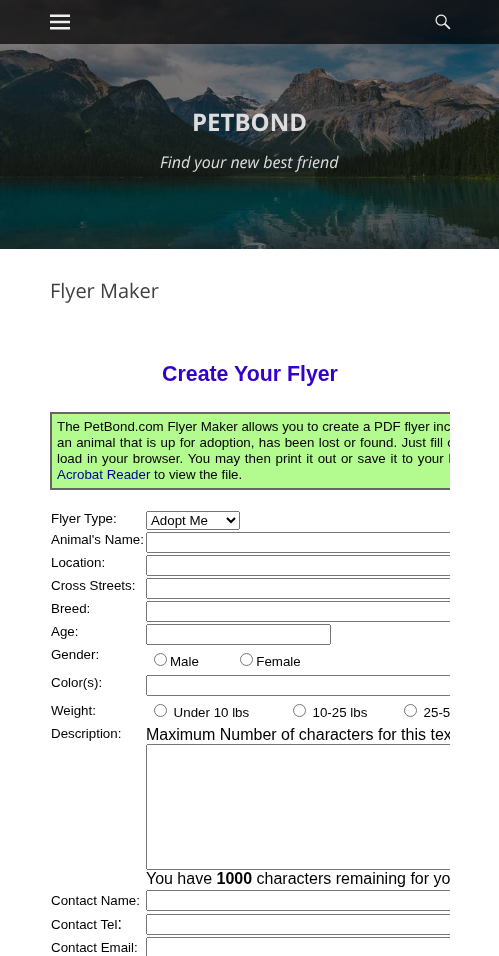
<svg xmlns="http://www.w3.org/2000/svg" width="499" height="956">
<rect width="100%" height="100%" fill="#fff"/>
<image x="0" y="0" width="499" height="249" href="media/3.png"/>
<rect width="499" height="44" fill="#000000b3"/>
<image x="50" y="14" width="20" height="16" href="media/1.png"/>
<image x="435" y="14" width="16" height="16" href="media/2.png"/>
<text x="192" y="131" style="font-family:Open Sans;font-size:24px;font-weight:bold;fill:#ddd">PETBOND</text>
<text x="160" y="168" style="font-family:Open Sans;font-size:16px;font-style:italic;fill:#ddd">Find your new best friend</text>
<text x="50" y="298" style="font-family:Open Sans;font-size:20px;fill:#404040">Flyer Maker</text>
<image x="50" y="365" width="400" height="591" href="media/4.png"/>
</svg>
